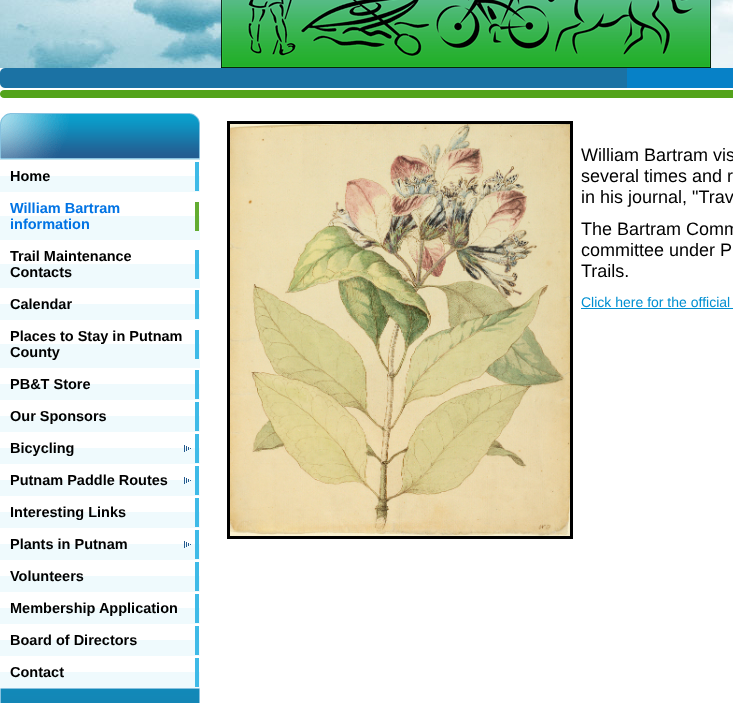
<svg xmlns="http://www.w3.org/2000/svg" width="733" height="703">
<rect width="100%" height="100%" fill="#fff"/>
<image x="0" y="0" width="733" height="68" href="media/1.png"/>
<image x="221" y="0" width="490" height="68" href="media/2.png"/>
<image x="10" y="68" width="723" height="30" href="media/3.png"/>
<image x="0" y="68" width="10" height="30" href="media/4.png"/>
<image x="0" y="689" width="200" height="14" href="media/5.png"/>
<image x="69" y="113" width="121" height="46" href="media/6.png"/>
<image x="0" y="688" width="200" height="1" href="media/7.png"/>
<image x="0" y="113" width="69" height="46" href="media/8.png"/>
<image x="190" y="113" width="10" height="46" href="media/9.png"/>
<rect y="176" width="200" height="16" fill="#effafd"/>
<rect y="159" width="200" height="1" fill="#c7e6ef"/>
<rect x="195" y="162" width="4" height="29" fill="#3ebae7"/>
<text x="10" y="181" style="font-family:Liberation Sans;font-size:14.5px;font-weight:bold;fill:#000">Home</text>
<rect y="216" width="200" height="24" fill="#effafd"/>
<rect x="195" y="202" width="4" height="29" fill="#63ac31"/>
<text x="10" y="213" style="font-family:Liberation Sans;font-size:14.5px;font-weight:bold;fill:#0073e4">William Bartram</text>
<text x="10" y="229" style="font-family:Liberation Sans;font-size:14.5px;font-weight:bold;fill:#0073e4">information</text>
<rect y="264" width="200" height="24" fill="#effafd"/>
<rect x="195" y="250" width="4" height="29" fill="#3ebae7"/>
<text x="10" y="261" style="font-family:Liberation Sans;font-size:14.5px;font-weight:bold;fill:#000">Trail Maintenance</text>
<text x="10" y="277" style="font-family:Liberation Sans;font-size:14.5px;font-weight:bold;fill:#000">Contacts</text>
<rect y="304" width="200" height="16" fill="#effafd"/>
<rect x="195" y="290" width="4" height="29" fill="#3ebae7"/>
<text x="10" y="309" style="font-family:Liberation Sans;font-size:14.5px;font-weight:bold;fill:#000">Calendar</text>
<rect y="344" width="200" height="24" fill="#effafd"/>
<rect x="195" y="330" width="4" height="29" fill="#3ebae7"/>
<text x="10" y="341" style="font-family:Liberation Sans;font-size:14.5px;font-weight:bold;fill:#000">Places to Stay in Putnam</text>
<text x="10" y="357" style="font-family:Liberation Sans;font-size:14.5px;font-weight:bold;fill:#000">County</text>
<rect y="384" width="200" height="16" fill="#effafd"/>
<rect x="195" y="370" width="4" height="29" fill="#3ebae7"/>
<text x="10" y="389" style="font-family:Liberation Sans;font-size:14.5px;font-weight:bold;fill:#000">PB&amp;T Store</text>
<rect y="416" width="200" height="16" fill="#effafd"/>
<rect x="195" y="402" width="4" height="29" fill="#3ebae7"/>
<text x="10" y="421" style="font-family:Liberation Sans;font-size:14.5px;font-weight:bold;fill:#000">Our Sponsors</text>
<rect y="448" width="200" height="16" fill="#effafd"/>
<rect x="195" y="434" width="4" height="29" fill="#3ebae7"/>
<image x="184" y="445" width="7" height="7" href="media/10.png"/>
<text x="10" y="453" style="font-family:Liberation Sans;font-size:14.5px;font-weight:bold;fill:#000">Bicycling</text>
<rect y="480" width="200" height="16" fill="#effafd"/>
<rect x="195" y="466" width="4" height="29" fill="#3ebae7"/>
<image x="184" y="477" width="7" height="7" href="media/10.png"/>
<text x="10" y="485" style="font-family:Liberation Sans;font-size:14.5px;font-weight:bold;fill:#000">Putnam Paddle Routes</text>
<rect y="512" width="200" height="16" fill="#effafd"/>
<rect x="195" y="498" width="4" height="29" fill="#3ebae7"/>
<text x="10" y="517" style="font-family:Liberation Sans;font-size:14.5px;font-weight:bold;fill:#000">Interesting Links</text>
<rect y="544" width="200" height="16" fill="#effafd"/>
<rect x="195" y="530" width="4" height="29" fill="#3ebae7"/>
<image x="184" y="541" width="7" height="7" href="media/10.png"/>
<text x="10" y="549" style="font-family:Liberation Sans;font-size:14.5px;font-weight:bold;fill:#000">Plants in Putnam</text>
<rect y="576" width="200" height="16" fill="#effafd"/>
<rect x="195" y="562" width="4" height="29" fill="#3ebae7"/>
<text x="10" y="581" style="font-family:Liberation Sans;font-size:14.5px;font-weight:bold;fill:#000">Volunteers</text>
<rect y="608" width="200" height="16" fill="#effafd"/>
<rect x="195" y="594" width="4" height="29" fill="#3ebae7"/>
<text x="10" y="613" style="font-family:Liberation Sans;font-size:14.5px;font-weight:bold;fill:#000">Membership Application</text>
<rect y="640" width="200" height="16" fill="#effafd"/>
<rect x="195" y="626" width="4" height="29" fill="#3ebae7"/>
<text x="10" y="645" style="font-family:Liberation Sans;font-size:14.5px;font-weight:bold;fill:#000">Board of Directors</text>
<rect y="672" width="200" height="16" fill="#effafd"/>
<rect x="195" y="658" width="4" height="29" fill="#3ebae7"/>
<text x="10" y="677" style="font-family:Liberation Sans;font-size:14.5px;font-weight:bold;fill:#000">Contact</text>
<rect x="228.5" y="122.5" width="343" height="415" fill="none" stroke="#000" stroke-width="3"/>
<image x="230" y="124" width="340" height="412" href="media/11.png"/>
<text x="581" y="161" style="font-family:Liberation Sans;font-size:18px;fill:#000">William Bartram vis</text>
<text x="581" y="182" style="font-family:Liberation Sans;font-size:18px;fill:#000">several times and r</text>
<text x="581" y="203" style="font-family:Liberation Sans;font-size:18px;fill:#000">in his journal, "Trav</text>
<text x="581" y="235" style="font-family:Liberation Sans;font-size:18px;fill:#000">The Bartram Comm</text>
<text x="581" y="256" style="font-family:Liberation Sans;font-size:18px;fill:#000">committee under P</text>
<text x="581" y="277" style="font-family:Liberation Sans;font-size:18px;fill:#000">Trails.</text>
<text x="581" y="307" style="font-family:Liberation Sans;font-size:14px;fill:#008fd1">Click here for the official</text>
<rect x="581" y="308" width="152" height="1" fill="#008fd1"/>
</svg>
